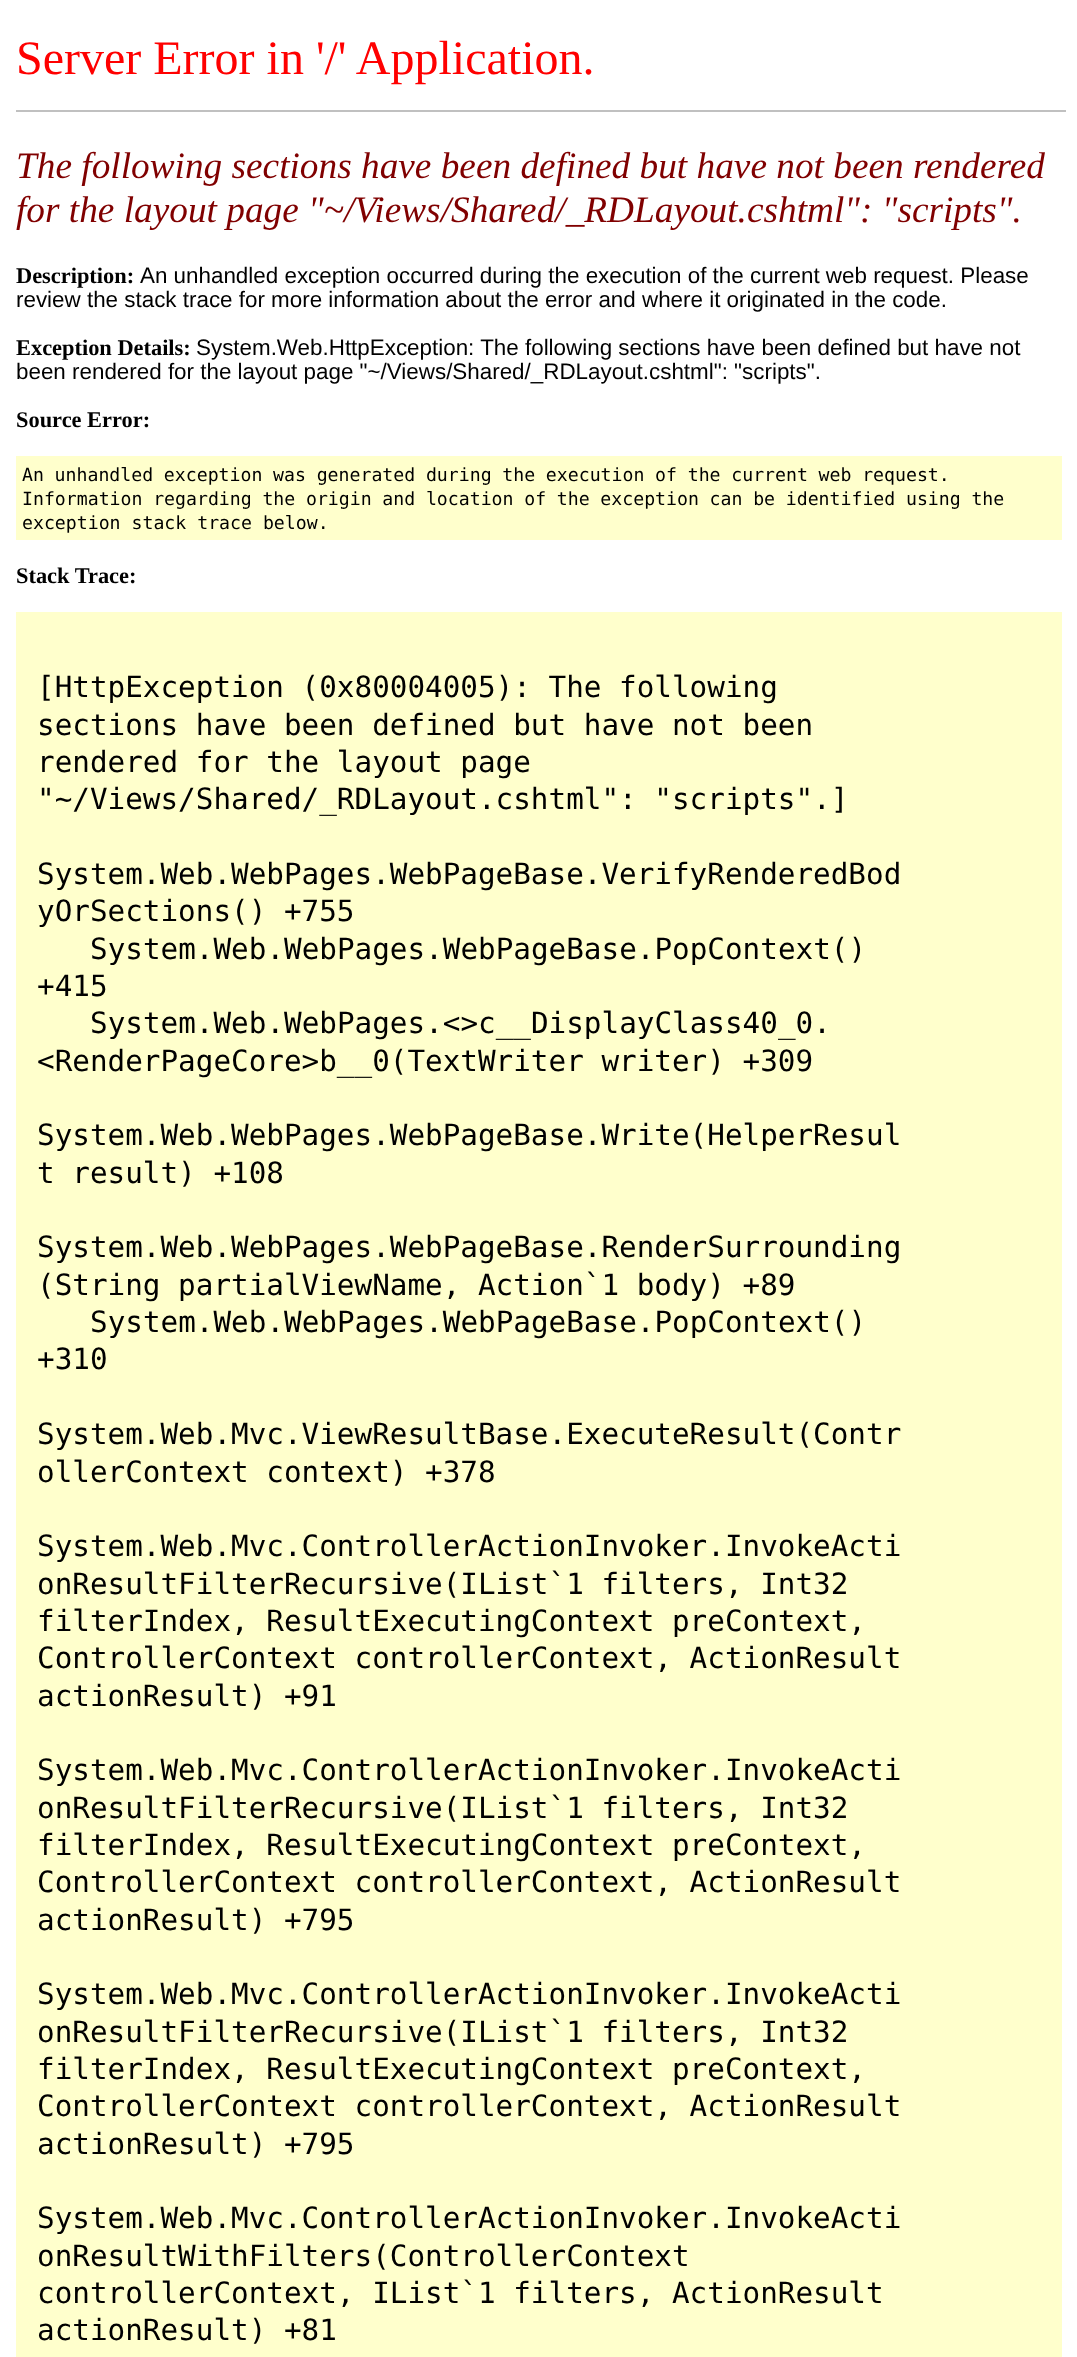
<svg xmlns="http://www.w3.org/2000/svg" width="1077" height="2357">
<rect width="100%" height="100%" fill="#fff"/>
<text x="16" y="74" style="font-family:Liberation Serif;font-size:48px;fill:#f00">Server Error in '/' Application.</text>
<rect x="16" y="110" width="1050" height="2" fill="#c0c0c0"/>
<text x="16" y="178" style="font-family:Liberation Serif;font-size:37.3px;font-style:italic;fill:#800000">The following sections have been defined but have not been rendered</text>
<text x="16" y="222" style="font-family:Liberation Serif;font-size:37.3px;font-style:italic;fill:#800000">for the layout page "~/Views/Shared/_RDLayout.cshtml": "scripts".</text>
<text x="16" y="283" style="font-family:Liberation Serif;font-size:22.4px;font-weight:bold;fill:#000">Description:</text>
<text x="140" y="283" style="font-family:Liberation Sans;font-size:22.4px;fill:#000">An unhandled exception occurred during the execution of the current web request. Please</text>
<text x="16" y="307" style="font-family:Liberation Sans;font-size:22.4px;fill:#000">review the stack trace for more information about the error and where it originated in the code.</text>
<text x="16" y="355" style="font-family:Liberation Serif;font-size:22.4px;font-weight:bold;fill:#000">Exception Details:</text>
<text x="196" y="355" style="font-family:Liberation Sans;font-size:22.4px;fill:#000">System.Web.HttpException: The following sections have been defined but have not</text>
<text x="16" y="379" style="font-family:Liberation Sans;font-size:22.4px;fill:#000">been rendered for the layout page "~/Views/Shared/_RDLayout.cshtml": "scripts".</text>
<text x="16" y="427" style="font-family:Liberation Serif;font-size:22.4px;font-weight:bold;fill:#000">Source Error:</text>
<rect x="16" y="456" width="1046" height="84" fill="#ffc"/>
<text x="22" y="481" word-spacing="-0.25" style="font-family:DejaVu Sans Mono;font-size:18.2px;fill:#000">An unhandled exception was generated during the execution of the current web request.</text>
<text x="22" y="505" word-spacing="-0.25" style="font-family:DejaVu Sans Mono;font-size:18.2px;fill:#000">Information regarding the origin and location of the exception can be identified using the</text>
<text x="22" y="529" style="font-family:DejaVu Sans Mono;font-size:18.2px;fill:#000">exception stack trace below.</text>
<text x="16" y="583" style="font-family:Liberation Serif;font-size:22.4px;font-weight:bold;fill:#000">Stack Trace:</text>
<rect x="16" y="612" width="1046" height="1745" fill="#ffc"/>
<text x="37" y="697" style="font-family:DejaVu Sans Mono;font-size:29.3px;fill:#000">[HttpException (0x80004005): The following</text>
<text x="37" y="735" style="font-family:DejaVu Sans Mono;font-size:29.3px;fill:#000">sections have been defined but have not been</text>
<text x="37" y="772" style="font-family:DejaVu Sans Mono;font-size:29.3px;fill:#000">rendered for the layout page</text>
<text x="37" y="809" style="font-family:DejaVu Sans Mono;font-size:29.3px;fill:#000">"~/Views/Shared/_RDLayout.cshtml": "scripts".]</text>
<text x="37" y="884" style="font-family:DejaVu Sans Mono;font-size:29.3px;fill:#000">System.Web.WebPages.WebPageBase.VerifyRenderedBod</text>
<text x="37" y="921" style="font-family:DejaVu Sans Mono;font-size:29.3px;fill:#000">yOrSections() +755</text>
<text x="90" y="959" style="font-family:DejaVu Sans Mono;font-size:29.3px;fill:#000">System.Web.WebPages.WebPageBase.PopContext()</text>
<text x="37" y="996" style="font-family:DejaVu Sans Mono;font-size:29.3px;fill:#000">+415</text>
<text x="90" y="1033" style="font-family:DejaVu Sans Mono;font-size:29.3px;fill:#000">System.Web.WebPages.&lt;&gt;c__DisplayClass40_0.</text>
<text x="37" y="1071" style="font-family:DejaVu Sans Mono;font-size:29.3px;fill:#000">&lt;RenderPageCore&gt;b__0(TextWriter writer) +309</text>
<text x="37" y="1145" style="font-family:DejaVu Sans Mono;font-size:29.3px;fill:#000">System.Web.WebPages.WebPageBase.Write(HelperResul</text>
<text x="37" y="1183" style="font-family:DejaVu Sans Mono;font-size:29.3px;fill:#000">t result) +108</text>
<text x="37" y="1257" style="font-family:DejaVu Sans Mono;font-size:29.3px;fill:#000">System.Web.WebPages.WebPageBase.RenderSurrounding</text>
<text x="37" y="1295" style="font-family:DejaVu Sans Mono;font-size:29.3px;fill:#000">(String partialViewName, Action`1 body) +89</text>
<text x="90" y="1332" style="font-family:DejaVu Sans Mono;font-size:29.3px;fill:#000">System.Web.WebPages.WebPageBase.PopContext()</text>
<text x="37" y="1369" style="font-family:DejaVu Sans Mono;font-size:29.3px;fill:#000">+310</text>
<text x="37" y="1444" style="font-family:DejaVu Sans Mono;font-size:29.3px;fill:#000">System.Web.Mvc.ViewResultBase.ExecuteResult(Contr</text>
<text x="37" y="1482" style="font-family:DejaVu Sans Mono;font-size:29.3px;fill:#000">ollerContext context) +378</text>
<text x="37" y="1556" style="font-family:DejaVu Sans Mono;font-size:29.3px;fill:#000">System.Web.Mvc.ControllerActionInvoker.InvokeActi</text>
<text x="37" y="1594" style="font-family:DejaVu Sans Mono;font-size:29.3px;fill:#000">onResultFilterRecursive(IList`1 filters, Int32</text>
<text x="37" y="1631" style="font-family:DejaVu Sans Mono;font-size:29.3px;fill:#000">filterIndex, ResultExecutingContext preContext,</text>
<text x="37" y="1668" style="font-family:DejaVu Sans Mono;font-size:29.3px;fill:#000">ControllerContext controllerContext, ActionResult</text>
<text x="37" y="1706" style="font-family:DejaVu Sans Mono;font-size:29.3px;fill:#000">actionResult) +91</text>
<text x="37" y="1780" style="font-family:DejaVu Sans Mono;font-size:29.3px;fill:#000">System.Web.Mvc.ControllerActionInvoker.InvokeActi</text>
<text x="37" y="1818" style="font-family:DejaVu Sans Mono;font-size:29.3px;fill:#000">onResultFilterRecursive(IList`1 filters, Int32</text>
<text x="37" y="1855" style="font-family:DejaVu Sans Mono;font-size:29.3px;fill:#000">filterIndex, ResultExecutingContext preContext,</text>
<text x="37" y="1892" style="font-family:DejaVu Sans Mono;font-size:29.3px;fill:#000">ControllerContext controllerContext, ActionResult</text>
<text x="37" y="1930" style="font-family:DejaVu Sans Mono;font-size:29.3px;fill:#000">actionResult) +795</text>
<text x="37" y="2004" style="font-family:DejaVu Sans Mono;font-size:29.3px;fill:#000">System.Web.Mvc.ControllerActionInvoker.InvokeActi</text>
<text x="37" y="2042" style="font-family:DejaVu Sans Mono;font-size:29.3px;fill:#000">onResultFilterRecursive(IList`1 filters, Int32</text>
<text x="37" y="2079" style="font-family:DejaVu Sans Mono;font-size:29.3px;fill:#000">filterIndex, ResultExecutingContext preContext,</text>
<text x="37" y="2116" style="font-family:DejaVu Sans Mono;font-size:29.3px;fill:#000">ControllerContext controllerContext, ActionResult</text>
<text x="37" y="2154" style="font-family:DejaVu Sans Mono;font-size:29.3px;fill:#000">actionResult) +795</text>
<text x="37" y="2228" style="font-family:DejaVu Sans Mono;font-size:29.3px;fill:#000">System.Web.Mvc.ControllerActionInvoker.InvokeActi</text>
<text x="37" y="2266" style="font-family:DejaVu Sans Mono;font-size:29.3px;fill:#000">onResultWithFilters(ControllerContext</text>
<text x="37" y="2303" style="font-family:DejaVu Sans Mono;font-size:29.3px;fill:#000">controllerContext, IList`1 filters, ActionResult</text>
<text x="37" y="2340" style="font-family:DejaVu Sans Mono;font-size:29.3px;fill:#000">actionResult) +81</text>
</svg>
